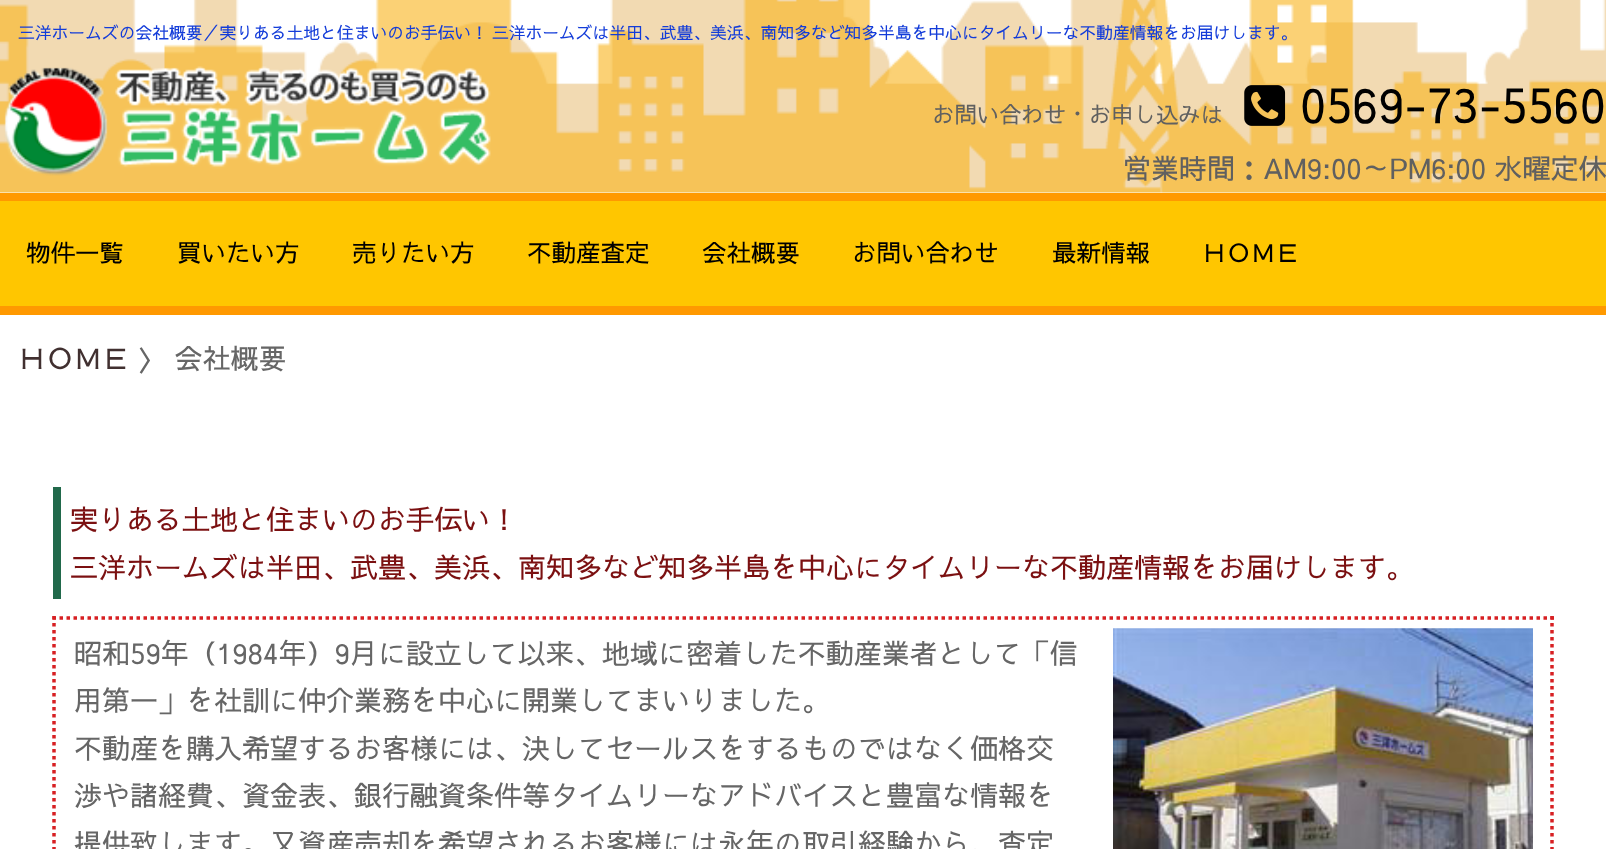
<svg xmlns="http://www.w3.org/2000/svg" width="1606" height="849">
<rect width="100%" height="100%" fill="#fff"/>
<image x="0" y="0" width="1606" height="193" href="media/1.png"/>
<rect y="193" width="1606" height="8" fill="#f90"/>
<text x="18" y="39" word-spacing="-1" style="font-family:Sawarabi Gothic;font-size:16.8px;fill:#133cd9">三洋ホームズの会社概要／実りある土地と住まいのお手伝い！ 三洋ホームズは半田、武豊、美浜、南知多など知多半島を中心にタイムリーな不動産情報をお届けします。</text>
<image x="4" y="66" width="487" height="110" href="media/2.png"/>
<text x="932" y="123" style="font-family:Sawarabi Gothic;font-size:22.4px;fill:#606060">お問い合わせ・お申し込みは</text>
<image x="1244" y="85" width="42" height="41" href="media/3.png"/>
<text x="1300" y="123" style="font-family:Sawarabi Gothic;font-size:47.5px;fill:#000">0569-73-5560</text>
<text x="1123" y="179" style="font-family:Sawarabi Gothic;font-size:28px;fill:#606060">営業時間：AM9:00～PM6:00 水曜定休</text>
<rect y="201" width="1606" height="105" fill="#ffc600"/>
<rect y="306" width="1606" height="9" fill="#f90"/>
<text x="26" y="262" style="font-family:Sawarabi Gothic;font-size:24.5px;fill:#000">物件一覧</text>
<text x="177" y="262" style="font-family:Sawarabi Gothic;font-size:24.5px;fill:#000">買いたい方</text>
<text x="352" y="262" style="font-family:Sawarabi Gothic;font-size:24.5px;fill:#000">売りたい方</text>
<text x="527" y="262" style="font-family:Sawarabi Gothic;font-size:24.5px;fill:#000">不動産査定</text>
<text x="702" y="262" style="font-family:Sawarabi Gothic;font-size:24.5px;fill:#000">会社概要</text>
<text x="852" y="262" style="font-family:Sawarabi Gothic;font-size:24.5px;fill:#000">お問い合わせ</text>
<text x="1052" y="262" style="font-family:Sawarabi Gothic;font-size:24.5px;fill:#000">最新情報</text>
<text x="1202" y="262" style="font-family:Sawarabi Gothic;font-size:24.5px;fill:#000">ＨＯＭＥ</text>
<text x="18" y="369" style="font-family:Sawarabi Gothic;font-size:28px;fill:#413030">ＨＯＭＥ</text>
<text x="138" y="369" style="font-family:Sawarabi Gothic;font-size:28px;fill:#666">〉 会社概要</text>
<rect x="53" y="487" width="8" height="112" fill="#21694b"/>
<text x="70" y="530" style="font-family:Sawarabi Gothic;font-size:28px;fill:#7b1011">実りある土地と住まいのお手伝い！</text>
<text x="70" y="578" style="font-family:Sawarabi Gothic;font-size:28px;fill:#7b1011">三洋ホームズは半田、武豊、美浜、南知多など知多半島を中心にタイムリーな不動産情報をお届けします。</text>
<path d="M52.5 618h1501.5" fill="none" stroke="#d72023" stroke-width="3.5" stroke-dasharray="3.5 3.5"/>
<path d="M1552 616v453" fill="none" stroke="#d72023" stroke-width="3.5" stroke-dasharray="3.5 3.5"/>
<path d="M54 616v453" fill="none" stroke="#d72023" stroke-width="3.5" stroke-dasharray="3.5 3.5"/>
<text x="74" y="664" style="font-family:Sawarabi Gothic;font-size:28px;fill:#666">昭和59年（1984年）9月に設立して以来、地域に密着した不動産業者として「信</text>
<image x="1113" y="628" width="420" height="221" href="media/4.png"/>
<text x="74" y="711" style="font-family:Sawarabi Gothic;font-size:28px;fill:#666">用第一」を社訓に仲介業務を中心に開業してまいりました。</text>
<text x="74" y="759" style="font-family:Sawarabi Gothic;font-size:28px;fill:#666">不動産を購入希望するお客様には、決してセールスをするものではなく価格交</text>
<text x="74" y="806" style="font-family:Sawarabi Gothic;font-size:28px;fill:#666">渉や諸経費、資金表、銀行融資条件等タイムリーなアドバイスと豊富な情報を</text>
<text x="74" y="854" style="font-family:Sawarabi Gothic;font-size:28px;fill:#666">提供致します。又資産売却を希望されるお客様には永年の取引経験から、査定</text>
</svg>
